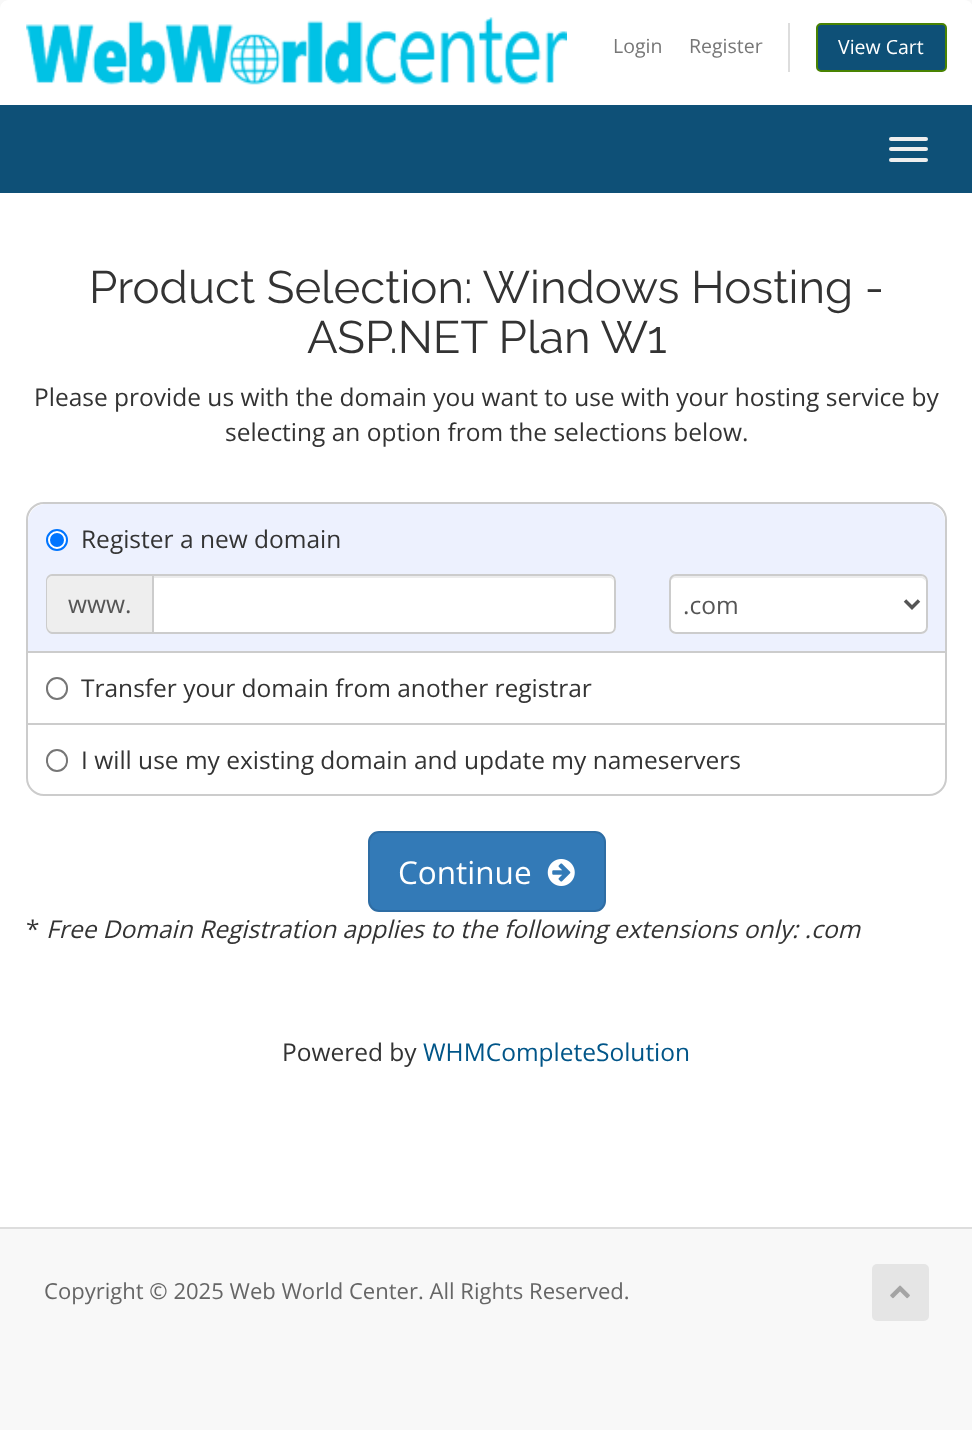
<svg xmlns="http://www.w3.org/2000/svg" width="972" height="1430">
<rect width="100%" height="100%" fill="#f8f8f8"/>
<path d="M9 0h955c5 0 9 4 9 9v96h-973v-96c0-5 4-9 9-9z" fill="#fff"/>
<image x="26" y="17" width="541" height="68" href="media/1.png"/>
<text x="613" y="53" style="font-family:Open Sans;font-size:19.5px;fill:#777">Login</text>
<text x="689" y="53" style="font-family:Open Sans;font-size:19.5px;fill:#777">Register</text>
<rect x="788" y="23" width="2" height="49" fill="#ddd"/>
<rect x="817" y="24" width="129" height="47" rx="4" fill="#0e5077" stroke="#498302" stroke-width="2"/>
<text x="838" y="54" style="font-family:Open Sans;font-size:19.5px;fill:#fff">View Cart</text>
<rect y="105" width="972" height="88" fill="#0e5077"/>
<rect x="889" y="137" width="39" height="4" rx="2" fill="#eee"/>
<rect x="889" y="147" width="39" height="4" rx="2" fill="#eee"/>
<rect x="889" y="158" width="39" height="4" rx="2" fill="#eee"/>
<rect y="193" width="972" height="1034" fill="#fff"/>
<text x="89" y="303" style="font-family:Raleway;font-size:45.5px;fill:#333">Product Selection: Windows Hosting -</text>
<text x="307" y="353" style="font-family:Raleway;font-size:45.5px;fill:#333">ASP.NET Plan W1</text>
<text x="34" y="406" style="font-family:Open Sans;font-size:24.5px;fill:#333">Please provide us with the domain you want to use with your hosting service by</text>
<text x="225" y="441" style="font-family:Open Sans;font-size:24.5px;fill:#333">selecting an option from the selections below.</text>
<rect x="27" y="503" width="919" height="292" rx="17" fill="none" stroke="#ccc" stroke-width="2"/>
<path d="M46 504h881c10 0 18 8 18 18v131h-917v-131c0-10 8-18 18-18z" fill="#edf1fe"/>
<rect x="28" y="651" width="917" height="2" fill="#ccc"/>
<circle cx="57" cy="540" r="10" fill="#fff" stroke="#0075ff" stroke-width="2"/>
<circle cx="57" cy="540" r="7" fill="#0075ff"/>
<text x="81" y="548" style="font-family:Open Sans;font-size:24.5px;fill:#333">Register a new domain</text>
<path d="M53 574h99v60h-99c-4 0-7-3-7-7v-46c0-4 3-7 7-7z" fill="#eee"/>
<path d="M52 574h100v60h-100c-3 0-6-4-6-8v-45c0-4 3-7 6-7zm0 2h100v56h-100c-2 0-5-3-5-6v-45c0-3 3-5 5-5z" fill="#ccc" fill-rule="evenodd"/>
<text x="68" y="613" style="font-family:Open Sans;font-size:24.5px;fill:#555">www.</text>
<path d="M152 574h457c4 0 7 3 7 7v46c0 4-3 7-7 7h-457z" fill="#fff"/>
<path d="M154 578h455c3 0 5 2 5 5c0-3-1-7-5-7h-455z" fill="#ececec"/>
<path d="M153 575h456c3.5 0 6 2.5 6 6v46c0 3.5-2.5 6-6 6h-456z" fill="none" stroke="#ccc" stroke-width="2"/>
<rect x="669" y="574" width="259" height="60" rx="7" fill="#fff"/>
<path d="M676 578h244c3 0 6 2 6 5c0-3-1-7-5-7h-246c-4 0-5 4-5 7c0-3 3-5 6-5z" fill="#ececec"/>
<rect x="670" y="575" width="257" height="58" rx="6" fill="none" stroke="#ccc" stroke-width="2"/>
<path d="M905 600.5l7 7l7-7" fill="none" stroke="#555" stroke-width="3.5"/>
<text x="683" y="614" style="font-family:Open Sans;font-size:24.5px;fill:#555">.com</text>
<rect x="28" y="723" width="917" height="2" fill="#ccc"/>
<rect x="47" y="678" width="20" height="21" rx="10" fill="none" stroke="#767676" stroke-width="2"/>
<text x="81" y="697" style="font-family:Open Sans;font-size:24.5px;fill:#333">Transfer your domain from another registrar</text>
<rect x="47" y="750" width="20" height="21" rx="10" fill="none" stroke="#767676" stroke-width="2"/>
<text x="81" y="769" style="font-family:Open Sans;font-size:24.5px;fill:#333">I will use my existing domain and update my nameservers</text>
<rect x="369" y="832" width="236" height="79" rx="10" fill="#337ab7" stroke="#2e6da4" stroke-width="2"/>
<text x="398" y="884" style="font-family:Open Sans;font-size:31.5px;fill:#fff">Continue</text>
<image x="547" y="859" width="28" height="27" href="media/2.png"/>
<text x="26" y="938" style="font-family:Open Sans;font-size:24.5px;fill:#333">*</text>
<text x="46" y="938" style="font-family:Open Sans;font-size:24.5px;font-style:italic;fill:#333">Free Domain Registration applies to the following extensions only: .com</text>
<text x="282" y="1061" style="font-family:Open Sans;font-size:24.5px;fill:#333">Powered by</text>
<text x="423" y="1061" style="font-family:Open Sans;font-size:24.5px;fill:#058">WHMCompleteSolution</text>
<rect y="1227" width="972" height="2" fill="#ddd"/>
<text x="44" y="1299" style="font-family:Open Sans;font-size:22.05px;fill:#666">Copyright © 2025 Web World Center. All Rights Reserved.</text>
<rect x="872" y="1264" width="57" height="57" rx="5" fill="#e5e5e5"/>
<image x="890" y="1285" width="20" height="14" href="media/3.png"/>
</svg>
